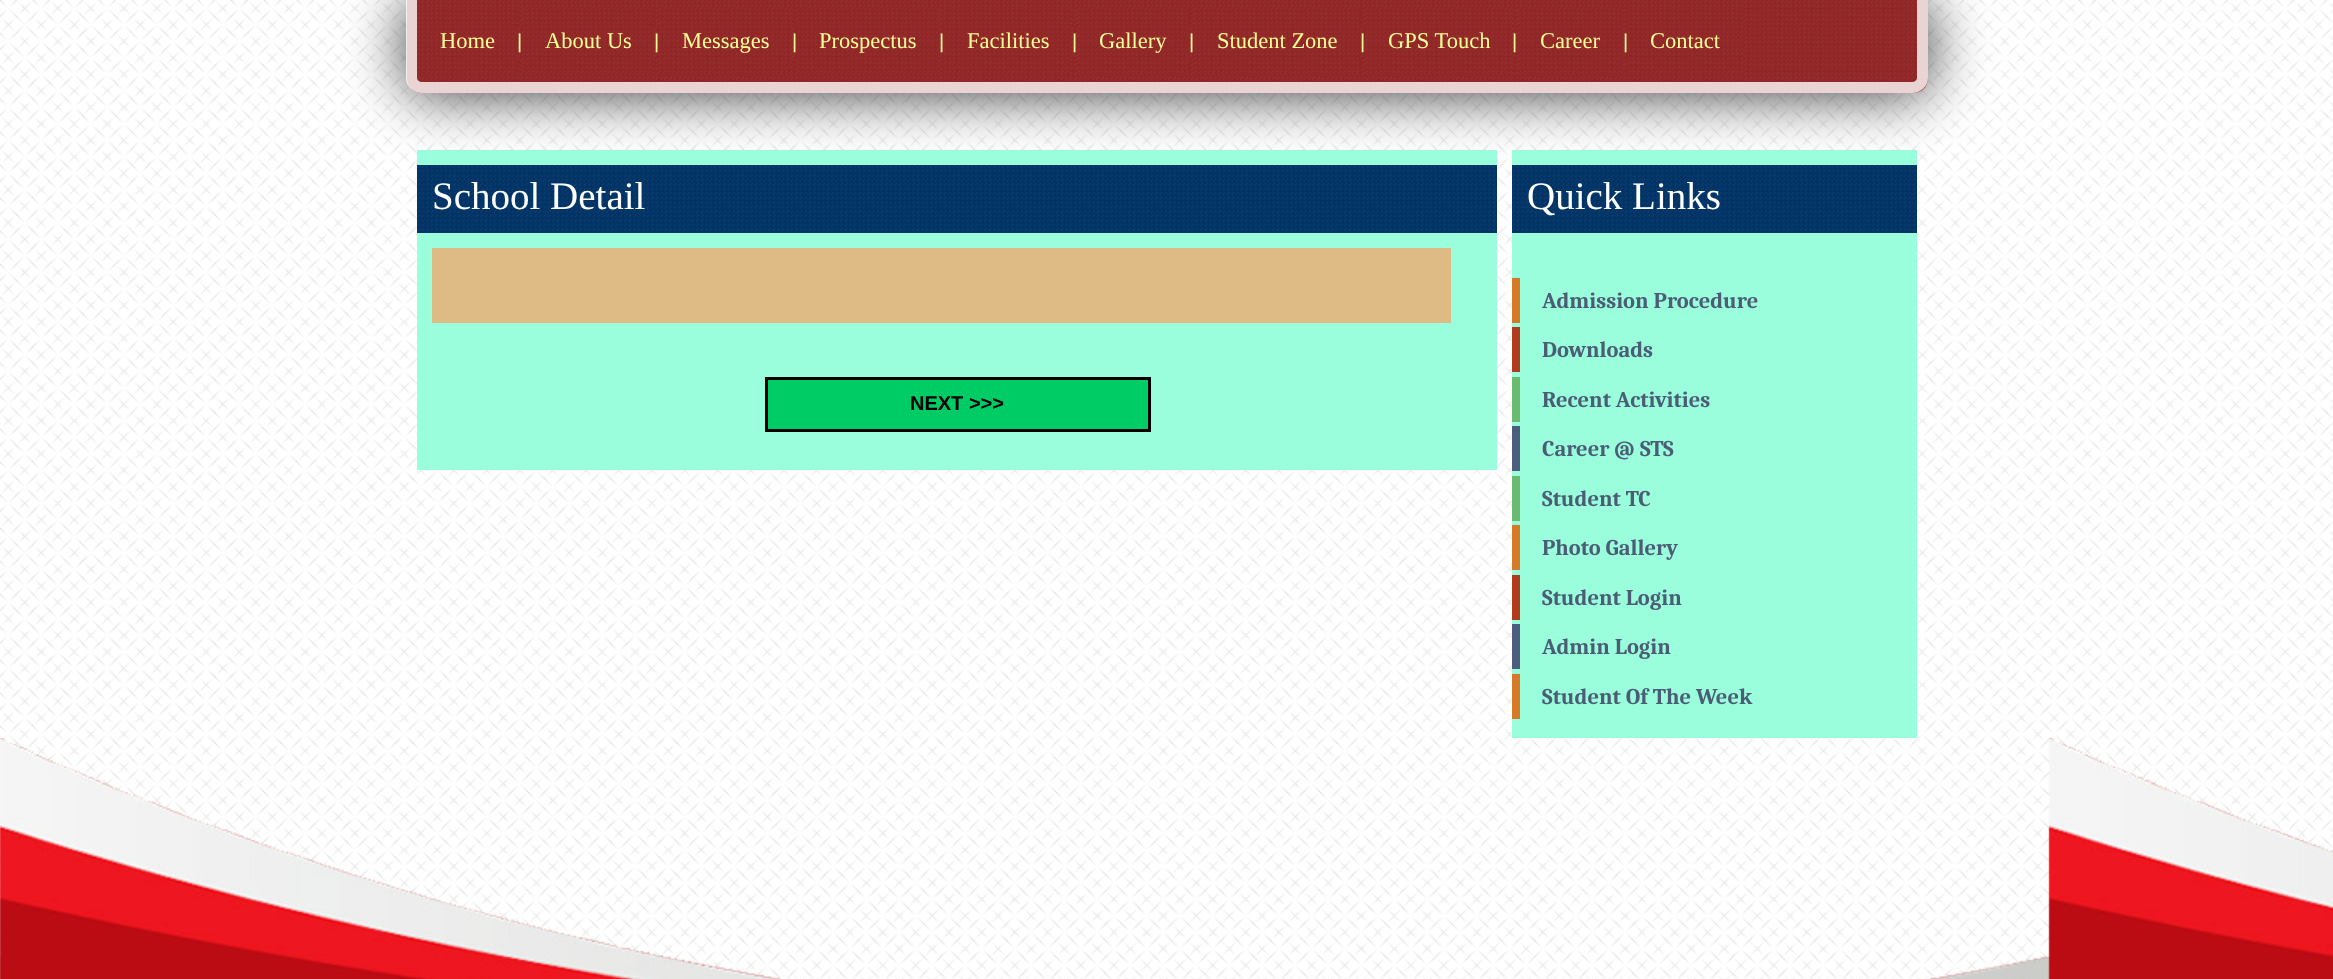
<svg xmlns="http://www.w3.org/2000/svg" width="2333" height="979">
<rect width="100%" height="100%" fill="#fff"/>
<image x="0" y="0" width="2333" height="979" href="media/1.png"/>
<rect x="407" width="1521" height="93" rx="15" fill="#000000cc" filter="blur(30px)"/>
<path d="M407 0h1521v78c0 8.5-6.5 15-15 15h-1491c-8.5 0-15-6.5-15-15z" fill="#922626"/>
<image x="408" y="0" width="1519" height="93" href="media/2.png"/>
<path d="M406 0h1522v78c0 8-7 15-16 15h-1490c-9 0-16-7-16-15zm11 0h1500v78c0 2-2 4-5 4h-1490c-3 0-5-2-5-4z" fill="#ffffffcc" fill-rule="evenodd"/>
<rect x="417" y="9" width="101" height="65" fill="#922626"/>
<image x="417" y="8" width="100" height="65" href="media/3.png"/>
<text x="440" y="48" style="font-family:Liberation Serif;font-size:22.5px;fill:#ff9">Home</text>
<rect x="518" y="27" width="4" height="32" fill="#922626"/>
<image x="517" y="27" width="4" height="30" href="media/4.png"/>
<text x="517" y="48" style="font-family:Liberation Sans;font-size:20px;fill:#ff9">|</text>
<rect x="522" y="9" width="132" height="65" fill="#922626"/>
<image x="522" y="8" width="132" height="65" href="media/5.png"/>
<text x="545" y="48" style="font-family:Liberation Serif;font-size:22.5px;fill:#ff9">About Us</text>
<rect x="655" y="27" width="4" height="32" fill="#922626"/>
<image x="654" y="27" width="3" height="30" href="media/6.png"/>
<text x="654" y="48" style="font-family:Liberation Sans;font-size:20px;fill:#ff9">|</text>
<rect x="660" y="9" width="132" height="65" fill="#922626"/>
<image x="659" y="8" width="133" height="65" href="media/7.png"/>
<text x="682" y="48" style="font-family:Liberation Serif;font-size:22.5px;fill:#ff9">Messages</text>
<rect x="792" y="27" width="5" height="32" fill="#922626"/>
<image x="792" y="27" width="3" height="30" href="media/6.png"/>
<text x="792" y="48" style="font-family:Liberation Sans;font-size:20px;fill:#ff9">|</text>
<rect x="797" y="9" width="141" height="65" fill="#922626"/>
<image x="797" y="8" width="142" height="65" href="media/8.png"/>
<text x="819" y="48" style="font-family:Liberation Serif;font-size:22.5px;fill:#ff9">Prospectus</text>
<rect x="939" y="27" width="5" height="32" fill="#922626"/>
<image x="939" y="27" width="3" height="30" href="media/6.png"/>
<text x="939" y="48" style="font-family:Liberation Sans;font-size:20px;fill:#ff9">|</text>
<rect x="944" y="9" width="127" height="65" fill="#922626"/>
<image x="944" y="8" width="127" height="65" href="media/9.png"/>
<text x="967" y="48" style="font-family:Liberation Serif;font-size:22.5px;fill:#ff9">Facilities</text>
<rect x="1071" y="27" width="6" height="32" fill="#922626"/>
<image x="1071" y="27" width="6" height="30" href="media/10.png"/>
<text x="1072" y="48" style="font-family:Liberation Sans;font-size:20px;fill:#ff9">|</text>
<rect x="1078" y="9" width="112" height="65" fill="#922626"/>
<image x="1077" y="8" width="111" height="65" href="media/11.png"/>
<text x="1099" y="48" style="font-family:Liberation Serif;font-size:22.5px;fill:#ff9">Gallery</text>
<rect x="1191" y="27" width="3" height="32" fill="#922626"/>
<image x="1189" y="27" width="4" height="30" href="media/12.png"/>
<text x="1189" y="48" style="font-family:Liberation Sans;font-size:20px;fill:#ff9">|</text>
<rect x="1195" y="9" width="166" height="65" fill="#922626"/>
<image x="1194" y="8" width="165" height="65" href="media/13.png"/>
<text x="1217" y="48" style="font-family:Liberation Serif;font-size:22.5px;fill:#ff9">Student Zone</text>
<rect x="1362" y="27" width="3" height="32" fill="#922626"/>
<image x="1360" y="27" width="4" height="30" href="media/14.png"/>
<text x="1360" y="48" style="font-family:Liberation Sans;font-size:20px;fill:#ff9">|</text>
<rect x="1366" y="9" width="146" height="65" fill="#922626"/>
<image x="1365" y="8" width="147" height="65" href="media/15.png"/>
<text x="1388" y="48" style="font-family:Liberation Serif;font-size:22.5px;fill:#ff9">GPS Touch</text>
<rect x="1512" y="27" width="6" height="32" fill="#922626"/>
<image x="1512" y="27" width="6" height="30" href="media/10.png"/>
<text x="1512" y="48" style="font-family:Liberation Sans;font-size:20px;fill:#ff9">|</text>
<rect x="1519" y="9" width="103" height="65" fill="#922626"/>
<image x="1518" y="8" width="105" height="65" href="media/16.png"/>
<text x="1540" y="48" style="font-family:Liberation Serif;font-size:22.5px;fill:#ff9">Career</text>
<rect x="1623" y="27" width="5" height="32" fill="#922626"/>
<image x="1623" y="27" width="3" height="30" href="media/6.png"/>
<text x="1623" y="48" style="font-family:Liberation Sans;font-size:20px;fill:#ff9">|</text>
<rect x="1628" y="9" width="115" height="65" fill="#922626"/>
<image x="1628" y="8" width="115" height="65" href="media/17.png"/>
<text x="1650" y="48" style="font-family:Liberation Serif;font-size:22.5px;fill:#ff9">Contact</text>
<rect x="417" y="150" width="1080" height="320" fill="#9afddb"/>
<rect x="417" y="165" width="1080" height="68" fill="#036"/>
<image x="417" y="165" width="1079" height="66" href="media/18.png"/>
<text x="432" y="209" style="font-family:Liberation Serif;font-size:39px;fill:#fff">School Detail</text>
<rect x="432" y="248" width="1019" height="75" fill="#deba84"/>
<rect x="766.5" y="378.5" width="383" height="52" fill="#0c6" stroke="#000" stroke-width="3"/>
<text x="910" y="410" style="font-family:Liberation Sans;font-size:20px;font-weight:bold;fill:#000">NEXT &gt;&gt;&gt;</text>
<rect x="1512" y="150" width="405" height="588" fill="#9afddb"/>
<rect x="1512" y="165" width="405" height="68" fill="#036"/>
<image x="1512" y="165" width="404" height="66" href="media/19.png"/>
<text x="1527" y="209" style="font-family:Liberation Serif;font-size:39px;fill:#fff">Quick Links</text>
<rect x="1512" y="278" width="8" height="45" fill="#d87928"/>
<text x="1542" y="308" style="font-family:Caladea;font-size:22.5px;font-weight:bold;fill:#4b5d75">Admission Procedure</text>
<rect x="1512" y="327" width="8" height="45" fill="#b23b1e"/>
<text x="1542" y="357" style="font-family:Caladea;font-size:22.5px;font-weight:bold;fill:#4b5d75">Downloads</text>
<rect x="1512" y="377" width="8" height="45" fill="#6bba70"/>
<text x="1542" y="407" style="font-family:Caladea;font-size:22.5px;font-weight:bold;fill:#4b5d75">Recent Activities</text>
<rect x="1512" y="426" width="8" height="45" fill="#4e5c7f"/>
<text x="1542" y="456" style="font-family:Caladea;font-size:22.5px;font-weight:bold;fill:#4b5d75">Career @ STS</text>
<rect x="1512" y="476" width="8" height="45" fill="#6bba70"/>
<text x="1542" y="506" style="font-family:Caladea;font-size:22.5px;font-weight:bold;fill:#4b5d75">Student TC</text>
<rect x="1512" y="525" width="8" height="45" fill="#d87928"/>
<text x="1542" y="555" style="font-family:Caladea;font-size:22.5px;font-weight:bold;fill:#4b5d75">Photo Gallery</text>
<rect x="1512" y="575" width="8" height="45" fill="#b23b1e"/>
<text x="1542" y="605" style="font-family:Caladea;font-size:22.5px;font-weight:bold;fill:#4b5d75">Student Login</text>
<rect x="1512" y="624" width="8" height="45" fill="#4e5c7f"/>
<text x="1542" y="654" style="font-family:Caladea;font-size:22.5px;font-weight:bold;fill:#4b5d75">Admin Login</text>
<rect x="1512" y="674" width="8" height="45" fill="#d87928"/>
<text x="1542" y="704" style="font-family:Caladea;font-size:22.5px;font-weight:bold;fill:#4b5d75">Student Of The Week</text>
<image x="0" y="738" width="2333" height="241" href="media/20.png"/>
</svg>
